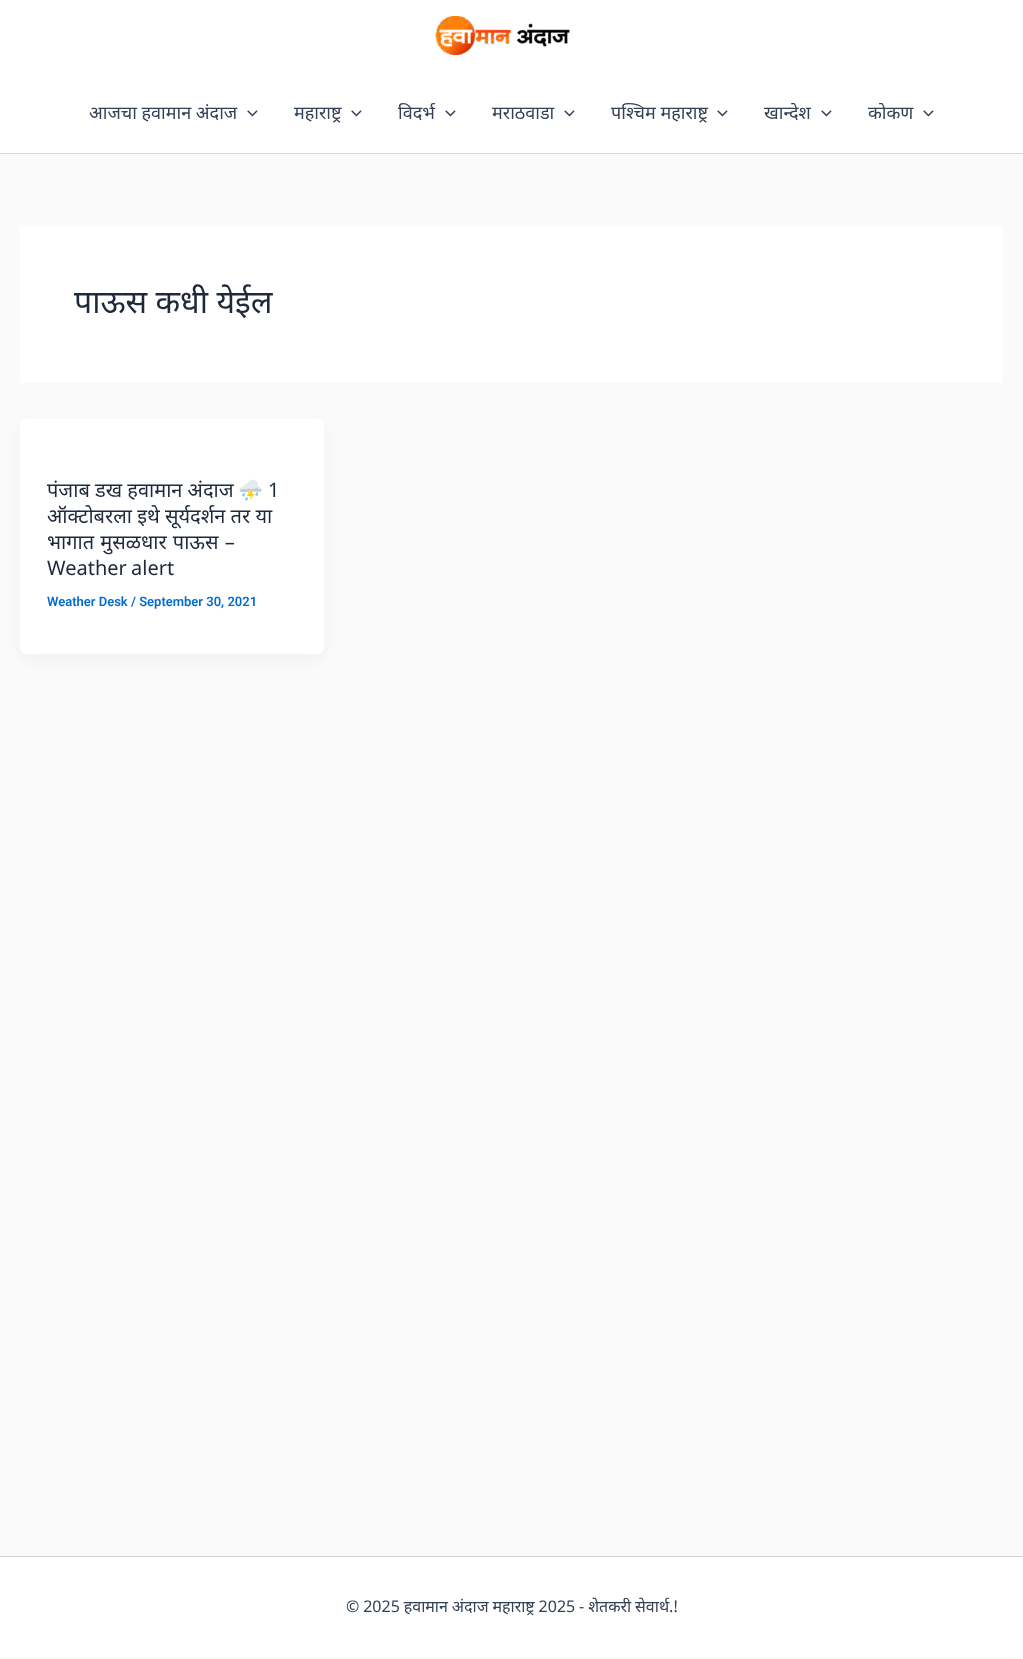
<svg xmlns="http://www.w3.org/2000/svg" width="1023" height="1659">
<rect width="100%" height="100%" fill="#fafafa"/>
<rect width="1023" height="153" fill="#fff"/>
<image x="435" y="16" width="135" height="39" href="media/1.png"/>
<rect y="153" width="1023" height="1" fill="#d1d5db"/>
<text x="89" y="119" style="font-family:Noto Sans;font-size:18px;fill:#334155">आजचा हवामान अंदाज</text>
<image x="247" y="110" width="11" height="7" href="media/2.png"/>
<text x="294" y="119" style="font-family:Noto Sans;font-size:18px;fill:#334155">महाराष्ट्र</text>
<image x="351" y="110" width="11" height="7" href="media/2.png"/>
<text x="398" y="119" style="font-family:Noto Sans;font-size:18px;fill:#334155">विदर्भ</text>
<image x="445" y="110" width="11" height="7" href="media/2.png"/>
<text x="492" y="119" style="font-family:Noto Sans;font-size:18px;fill:#334155">मराठवाडा</text>
<image x="564" y="110" width="11" height="7" href="media/2.png"/>
<text x="611" y="119" style="font-family:Noto Sans;font-size:18px;fill:#334155">पश्चिम महाराष्ट्र</text>
<image x="717" y="110" width="11" height="7" href="media/2.png"/>
<text x="764" y="119" style="font-family:Noto Sans;font-size:18px;fill:#334155">खान्देश</text>
<image x="821" y="110" width="11" height="7" href="media/2.png"/>
<text x="868" y="119" style="font-family:Noto Sans;font-size:18px;fill:#334155">कोकण</text>
<image x="923" y="110" width="11" height="7" href="media/2.png"/>
<rect x="20" y="226" width="983" height="157" fill="#fff"/>
<text x="74" y="313" style="font-family:Noto Sans;font-size:32px;fill:#1e293b">पाऊस कधी येईल</text>
<rect x="22" y="427" width="300" height="231" rx="4" fill="#1018280d" filter="blur(7.5px)"/>
<rect x="20" y="419" width="304" height="235" rx="6" fill="#fff"/>
<text x="47" y="497" style="font-family:Noto Sans;font-size:20px;fill:#1e293b">पंजाब डख हवामान अंदाज</text>
<text x="238" y="497" style="font-family:Noto Color Emoji;font-size:20px;font-weight:bold;fill:#1e293b">⛈️</text>
<text x="268" y="497" style="font-family:Noto Sans;font-size:20px;fill:#1e293b">1</text>
<text x="47" y="523" style="font-family:Noto Sans;font-size:20px;fill:#1e293b">ऑक्टोबरला इथे सूर्यदर्शन तर या</text>
<text x="47" y="549" word-spacing="1" style="font-family:Noto Sans;font-size:20px;fill:#1e293b">भागात मुसळधार पाऊस –</text>
<text x="47" y="575" word-spacing="-1" style="font-family:Noto Sans;font-size:20px;fill:#1e293b">Weather alert</text>
<text x="47" y="606" style="font-family:Roboto;font-size:13px;font-weight:600;fill:#046bd2">Weather Desk / September 30, 2021</text>
<rect y="1557" width="1023" height="100" fill="#fff"/>
<rect y="1556" width="1023" height="1" fill="#d1d5db"/>
<text x="346" y="1612" word-spacing="-0.25" style="font-family:Noto Sans;font-size:16px;fill:#334155">© 2025 हवामान अंदाज महाराष्ट्र 2025 - शेतकरी सेवार्थ.!</text>
</svg>
